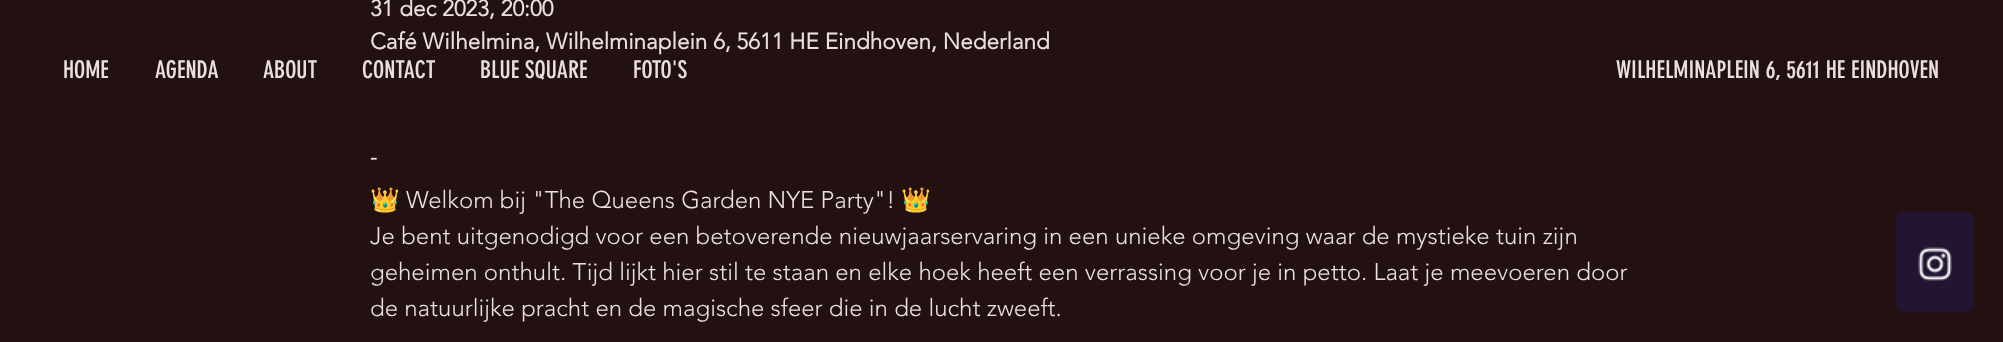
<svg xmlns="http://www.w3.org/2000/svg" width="2003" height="342">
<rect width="100%" height="100%" fill="#231111"/>
<text x="370" y="16" style="font-family:'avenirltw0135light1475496';font-size:22.5px;font-weight:bold;fill:#e8dfdf">31 dec 2023, 20:00</text>
<text x="370" y="49" style="font-family:'avenirltw0135light1475496';font-size:22.5px;font-weight:bold;fill:#e8dfdf">Café Wilhelmina, Wilhelminaplein 6, 5611 HE Eindhoven, Nederland</text>
<text x="370" y="164" style="font-family:'avenirltw0135light1475496';font-size:21px;font-weight:bold;fill:#e8dfdf">-</text>
<text x="370" y="208" style="font-family:Noto Color Emoji;font-size:24px;fill:#e8dfdf">👑</text>
<text x="406" y="208" style="font-family:'avenirltw0135light1475496';font-size:24px;font-weight:300;fill:#e8dfdf">Welkom bij "The Queens Garden NYE Party"!</text>
<text x="901" y="208" style="font-family:Noto Color Emoji;font-size:24px;fill:#e8dfdf">👑</text>
<text x="370" y="244" style="font-family:'avenirltw0135light1475496';font-size:24px;font-weight:300;fill:#e8dfdf">Je bent uitgenodigd voor een betoverende nieuwjaarservaring in een unieke omgeving waar de mystieke tuin zijn</text>
<text x="370" y="280" style="font-family:'avenirltw0135light1475496';font-size:24px;font-weight:300;fill:#e8dfdf">geheimen onthult. Tijd lijkt hier stil te staan en elke hoek heeft een verrassing voor je in petto. Laat je meevoeren door</text>
<text x="370" y="316" style="font-family:'avenirltw0135light1475496';font-size:24px;font-weight:300;fill:#e8dfdf">de natuurlijke pracht en de magische sfeer die in de lucht zweeft.</text>
<text x="63" y="78" style="font-family:'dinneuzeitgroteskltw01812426';font-size:24px;fill:#e8dfdf">HOME</text>
<text x="155" y="78" style="font-family:'dinneuzeitgroteskltw01812426';font-size:24px;fill:#e8dfdf">AGENDA</text>
<text x="263" y="78" style="font-family:'dinneuzeitgroteskltw01812426';font-size:24px;fill:#e8dfdf">ABOUT</text>
<text x="362" y="78" style="font-family:'dinneuzeitgroteskltw01812426';font-size:24px;fill:#e8dfdf">CONTACT</text>
<text x="480" y="78" style="font-family:'dinneuzeitgroteskltw01812426';font-size:24px;fill:#e8dfdf">BLUE SQUARE</text>
<text x="633" y="78" style="font-family:'dinneuzeitgroteskltw01812426';font-size:24px;fill:#e8dfdf">FOTO'S</text>
<text x="1616" y="78" style="font-family:'dinneuzeitgroteskltw01812426';font-size:24px;fill:#e8dfdf">WILHELMINAPLEIN 6, 5611 HE EINDHOVEN</text>
<rect x="1896" y="212" width="78" height="100" rx="8" fill="#221533"/>
<image x="1918" y="247" width="34" height="34" href="media/1.png"/>
</svg>
